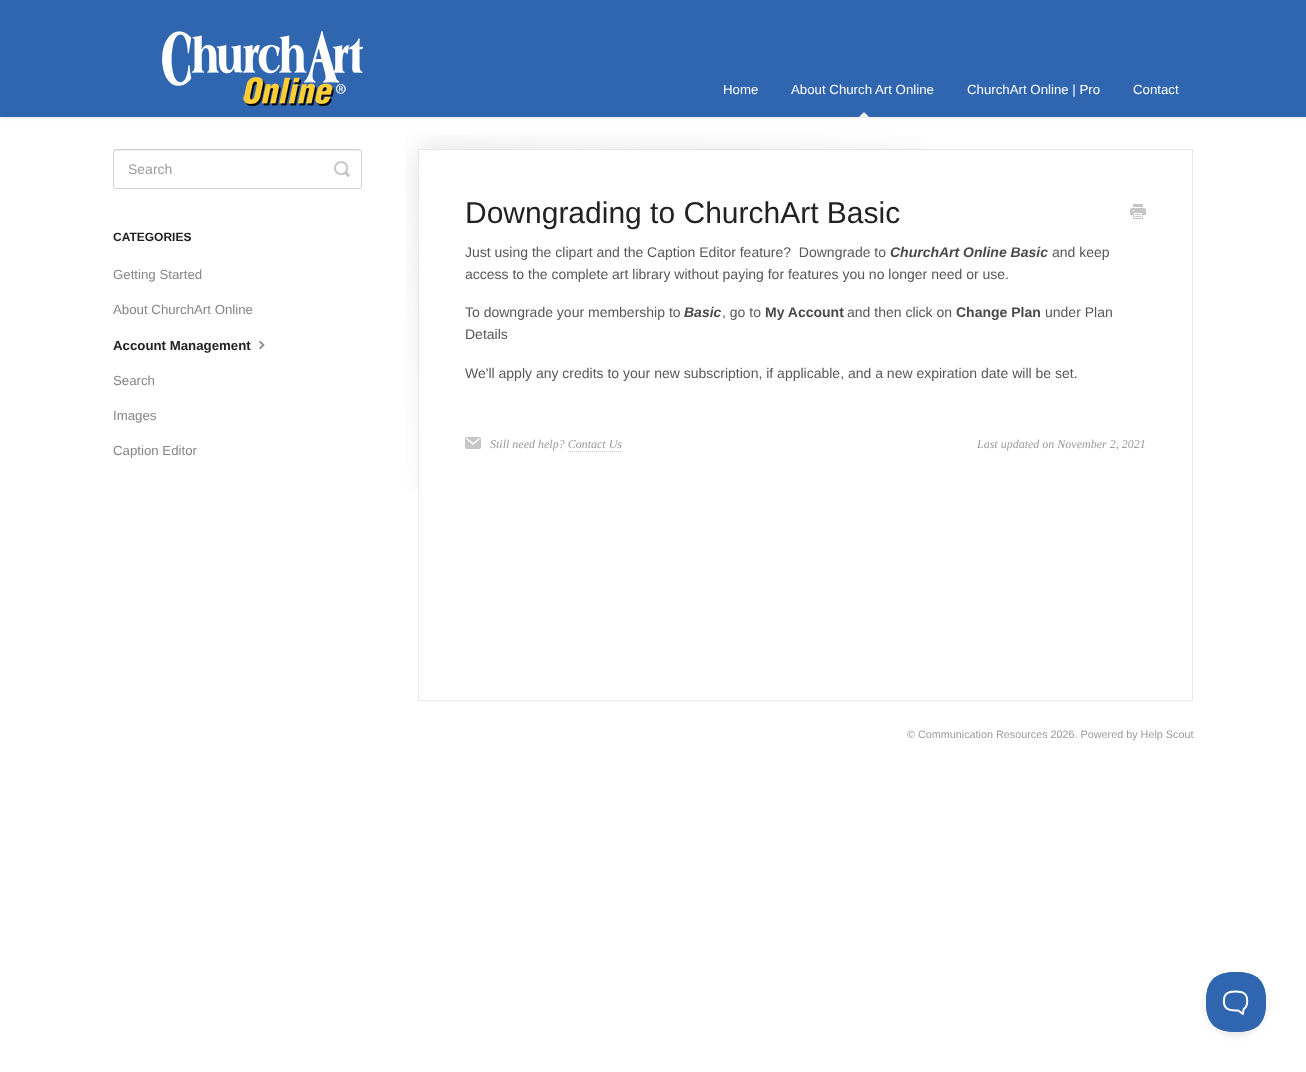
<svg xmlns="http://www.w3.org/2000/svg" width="1306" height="1072">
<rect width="100%" height="100%" fill="#fff"/>
<rect y="1" width="1306" height="117" fill="#00000012" filter="blur(2px)"/>
<rect width="1306" height="117" fill="#3066b0"/>
<image x="162" y="31" width="201" height="75" href="media/1.png"/>
<text x="723" y="94" style="font-family:Liberation Sans;font-size:13.25px;fill:#fff">Home</text>
<text x="791" y="94" style="font-family:Liberation Sans;font-size:13.25px;fill:#fff">About Church Art Online</text>
<path d="M869 117h-10l5-5z" fill="#f0f0f0"/>
<text x="967" y="94" style="font-family:Liberation Sans;font-size:13.25px;fill:#fff">ChurchArt Online | Pro</text>
<text x="1133" y="94" style="font-family:Liberation Sans;font-size:13.25px;fill:#fff">Contact</text>
<path d="M116 151h243c1 0 2 1 2 2v-2l-2-1h-243c-2 0-2 2-2 3c0-1 1-2 2-2z" fill="#ececec"/>
<rect x="113.5" y="149.5" width="248" height="39" rx="2.5" fill="none" stroke="#d0d0d0"/>
<text x="128" y="174" style="font-family:Liberation Sans;font-size:14px;fill:#9b9b9b">Search</text>
<image x="334" y="161" width="16" height="16" href="media/2.png"/>
<text x="113" y="241" style="font-family:Liberation Sans;font-size:12px;font-weight:bold;fill:#222">CATEGORIES</text>
<text x="113" y="279" style="font-family:Liberation Sans;font-size:13.25px;fill:#858585">Getting Started</text>
<text x="113" y="314" style="font-family:Liberation Sans;font-size:13.25px;fill:#858585">About ChurchArt Online</text>
<text x="113" y="350" style="font-family:Liberation Sans;font-size:13.25px;font-weight:bold;fill:#222">Account Management</text>
<image x="259" y="340" width="6" height="10" href="media/3.png"/>
<text x="113" y="385" style="font-family:Liberation Sans;font-size:13.25px;fill:#858585">Search</text>
<text x="113" y="420" style="font-family:Liberation Sans;font-size:13.25px;fill:#858585">Images</text>
<text x="113" y="455" style="font-family:Liberation Sans;font-size:13.25px;fill:#858585">Caption Editor</text>
<image x="405" y="135" width="516" height="354" href="media/4.png"/>
<rect x="418.5" y="149.5" width="774" height="551" fill="none" stroke="#e9e5e5"/>
<text x="465" y="223" style="font-family:Liberation Sans;font-size:30px;fill:#222">Downgrading to ChurchArt Basic</text>
<image x="1130" y="204" width="16" height="15" href="media/5.png"/>
<text x="465" y="257" style="font-family:Liberation Sans;font-size:14px;fill:#585858" xml:space="preserve">Just using the clipart and the Caption Editor feature?  Downgrade to</text>
<text x="890" y="257" style="font-family:Liberation Sans;font-size:14px;font-weight:bold;font-style:italic;fill:#494949">ChurchArt Online Basic</text>
<text x="1052" y="257" style="font-family:Liberation Sans;font-size:14px;fill:#585858">and keep</text>
<text x="465" y="279" style="font-family:Liberation Sans;font-size:14px;fill:#585858">access to the complete art library without paying for features you no longer need or use.</text>
<text x="465" y="317" style="font-family:Liberation Sans;font-size:14px;fill:#585858">To downgrade your membership to</text>
<text x="684" y="317" style="font-family:Liberation Sans;font-size:14px;font-weight:bold;font-style:italic;fill:#494949">Basic</text>
<text x="722" y="317" style="font-family:Liberation Sans;font-size:14px;fill:#585858">, go to</text>
<text x="765" y="317" style="font-family:Liberation Sans;font-size:14px;font-weight:bold;fill:#494949">My Account</text>
<text x="847" y="317" style="font-family:Liberation Sans;font-size:14px;fill:#585858">and then click on</text>
<text x="956" y="317" style="font-family:Liberation Sans;font-size:14px;font-weight:bold;fill:#494949">Change Plan</text>
<text x="1045" y="317" style="font-family:Liberation Sans;font-size:14px;fill:#585858">under Plan</text>
<text x="465" y="339" style="font-family:Liberation Sans;font-size:14px;fill:#585858">Details</text>
<text x="465" y="378" style="font-family:Liberation Sans;font-size:14px;fill:#585858">We'll apply any credits to your new subscription, if applicable, and a new expiration date will be set.</text>
<image x="465" y="437" width="16" height="12" href="media/6.png"/>
<text x="490" y="448" style="font-family:Liberation Serif;font-size:12px;font-style:italic;fill:#9b9b9b">Still need help? Contact Us</text>
<path d="M568 451.5h54" fill="none" stroke="#c5c5c5" stroke-dasharray="1 1"/>
<text x="977" y="448" style="font-family:Liberation Serif;font-size:12px;font-style:italic;fill:#9b9b9b">Last updated on November 2, 2021</text>
<text x="907" y="738" style="font-family:Liberation Sans;font-size:10.8px;fill:#9b9b9b">© Communication Resources 2026. Powered by Help Scout</text>
<rect x="1206" y="976" width="60" height="60" rx="30" fill="#0000001a" filter="blur(3.5px)"/>
<image x="1206" y="972" width="60" height="60" href="media/7.png"/>
</svg>
